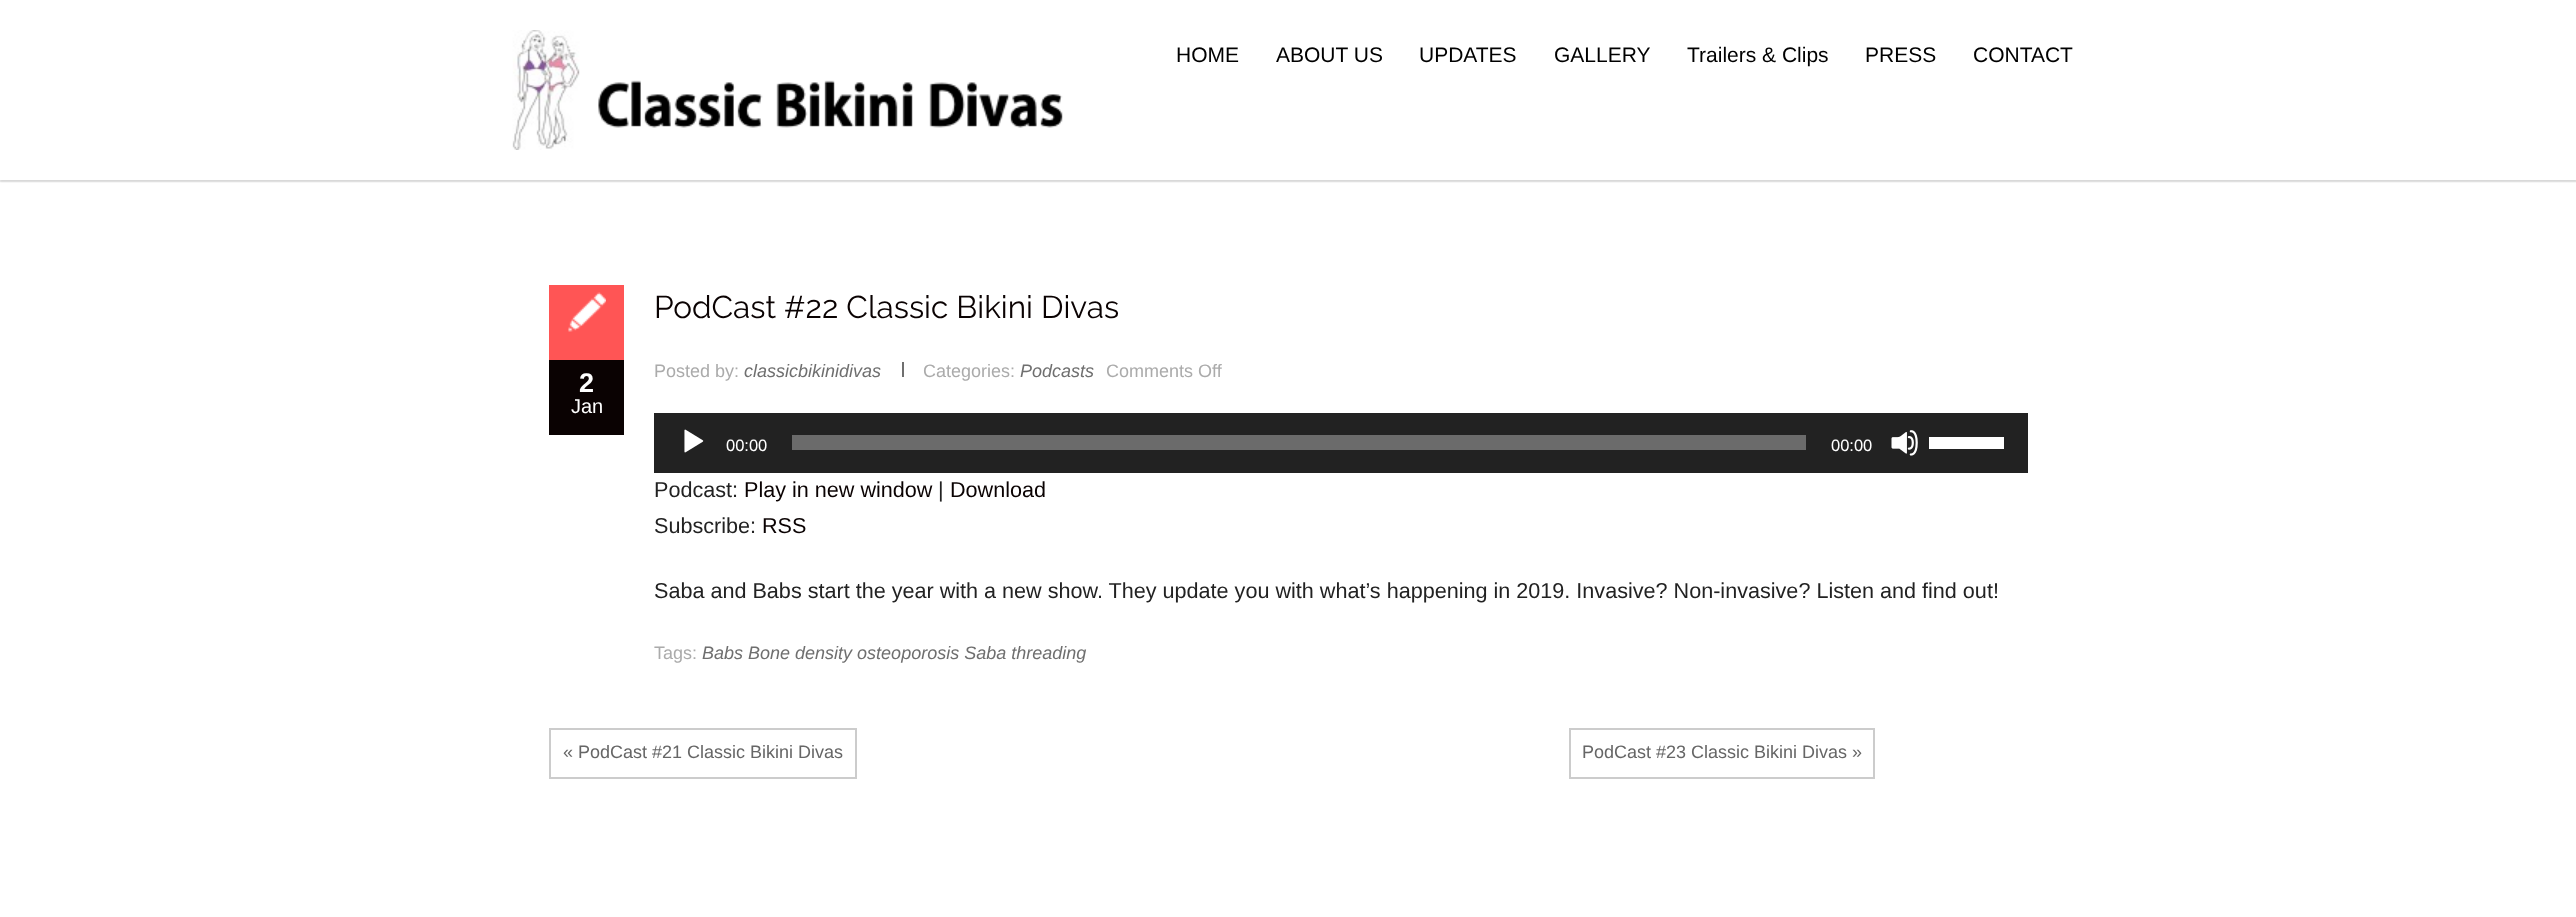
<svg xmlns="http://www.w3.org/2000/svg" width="2576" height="917">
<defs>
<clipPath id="clip1"><rect x="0" y="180" width="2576" height="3"/></clipPath>
</defs>
<rect width="100%" height="100%" fill="#fff"/>
<rect y="180" width="2576" height="2" fill="#f0f0f0"/>
<g clip-path="url(#clip1)">
<rect y="2" width="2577" height="180" fill="#0000001a" filter="blur(1px)"/>
</g>
<image x="512" y="30" width="551" height="120" href="media/1.png"/>
<text x="1176" y="62" style="font-family:Liberation Sans;font-size:21px;fill:#000">HOME</text>
<text x="1276" y="62" style="font-family:Liberation Sans;font-size:21px;fill:#000">ABOUT US</text>
<text x="1419" y="62" style="font-family:Liberation Sans;font-size:21px;fill:#000">UPDATES</text>
<text x="1554" y="62" style="font-family:Liberation Sans;font-size:21px;fill:#000">GALLERY</text>
<text x="1687" y="62" style="font-family:Liberation Sans;font-size:21px;fill:#000">Trailers &amp; Clips</text>
<text x="1865" y="62" style="font-family:Liberation Sans;font-size:21px;fill:#000">PRESS</text>
<text x="1973" y="62" style="font-family:Liberation Sans;font-size:21px;fill:#000">CONTACT</text>
<text x="654" y="318" style="font-family:Raleway;font-size:31.5px;font-weight:100;fill:#0a0202">PodCast #22 Classic Bikini Divas</text>
<rect x="549" y="285" width="75" height="75" fill="#f55"/>
<image x="568" y="292" width="38" height="40" href="media/2.png"/>
<rect x="549" y="360" width="75" height="75" fill="#0a0202"/>
<text x="579" y="392" style="font-family:Liberation Sans;font-size:27px;font-weight:bold;fill:#fff">2</text>
<text x="571" y="413" style="font-family:Liberation Sans;font-size:20px;fill:#fff">Jan</text>
<text x="654" y="377" style="font-family:Liberation Sans;font-size:18px;fill:#ababab">Posted by:</text>
<text x="744" y="377" style="font-family:Liberation Sans;font-size:18px;font-style:italic;fill:#6f6f6f">classicbikinidivas</text>
<rect x="902" y="362" width="2" height="15" fill="#6f6f6f"/>
<text x="923" y="377" style="font-family:Liberation Sans;font-size:18px;fill:#ababab">Categories:</text>
<text x="1020" y="377" style="font-family:Liberation Sans;font-size:18px;font-style:italic;fill:#6f6f6f">Podcasts</text>
<text x="1106" y="377" style="font-family:Liberation Sans;font-size:18px;fill:#ababab">Comments Off</text>
<rect x="654" y="413" width="1374" height="60" fill="#222"/>
<image x="684" y="429" width="20" height="24" href="media/3.png"/>
<text x="726" y="451" style="font-family:Liberation Sans;font-size:16.5px;fill:#fff">00:00</text>
<rect x="792" y="435" width="1014" height="15" fill="#6b6b6b"/>
<text x="1831" y="451" style="font-family:Liberation Sans;font-size:16.5px;fill:#fff">00:00</text>
<image x="1891" y="430" width="27" height="26" href="media/4.png"/>
<rect x="1929" y="437" width="75" height="12" fill="#fff"/>
<text x="654" y="497" style="font-family:Liberation Sans;font-size:21.6px;fill:#222">Podcast:</text>
<text x="744" y="497" style="font-family:Liberation Sans;font-size:21.6px;fill:#0a0202">Play in new window</text>
<text x="938" y="497" style="font-family:Liberation Sans;font-size:21.6px;fill:#222">|</text>
<text x="950" y="497" style="font-family:Liberation Sans;font-size:21.6px;fill:#0a0202">Download</text>
<text x="654" y="533" style="font-family:Liberation Sans;font-size:21.6px;fill:#222">Subscribe:</text>
<text x="762" y="533" style="font-family:Liberation Sans;font-size:21.6px;fill:#0a0202">RSS</text>
<text x="654" y="598" style="font-family:Liberation Sans;font-size:21.6px;fill:#222">Saba and Babs start the year with a new show. They update you with what’s happening in 2019. Invasive? Non-invasive? Listen and find out!</text>
<text x="654" y="659" style="font-family:Liberation Sans;font-size:18px;fill:#ababab">Tags:</text>
<text x="702" y="659" style="font-family:Liberation Sans;font-size:18px;font-style:italic;fill:#6f6f6f">Babs Bone density osteoporosis Saba threading</text>
<rect x="550" y="729" width="306" height="49" fill="none" stroke="#ccc" stroke-width="2"/>
<text x="563" y="758" style="font-family:Liberation Sans;font-size:18px;fill:#666">« PodCast #21 Classic Bikini Divas</text>
<rect x="1570" y="729" width="304" height="49" fill="none" stroke="#ccc" stroke-width="2"/>
<text x="1582" y="758" style="font-family:Liberation Sans;font-size:18px;fill:#666">PodCast #23 Classic Bikini Divas »</text>
</svg>
